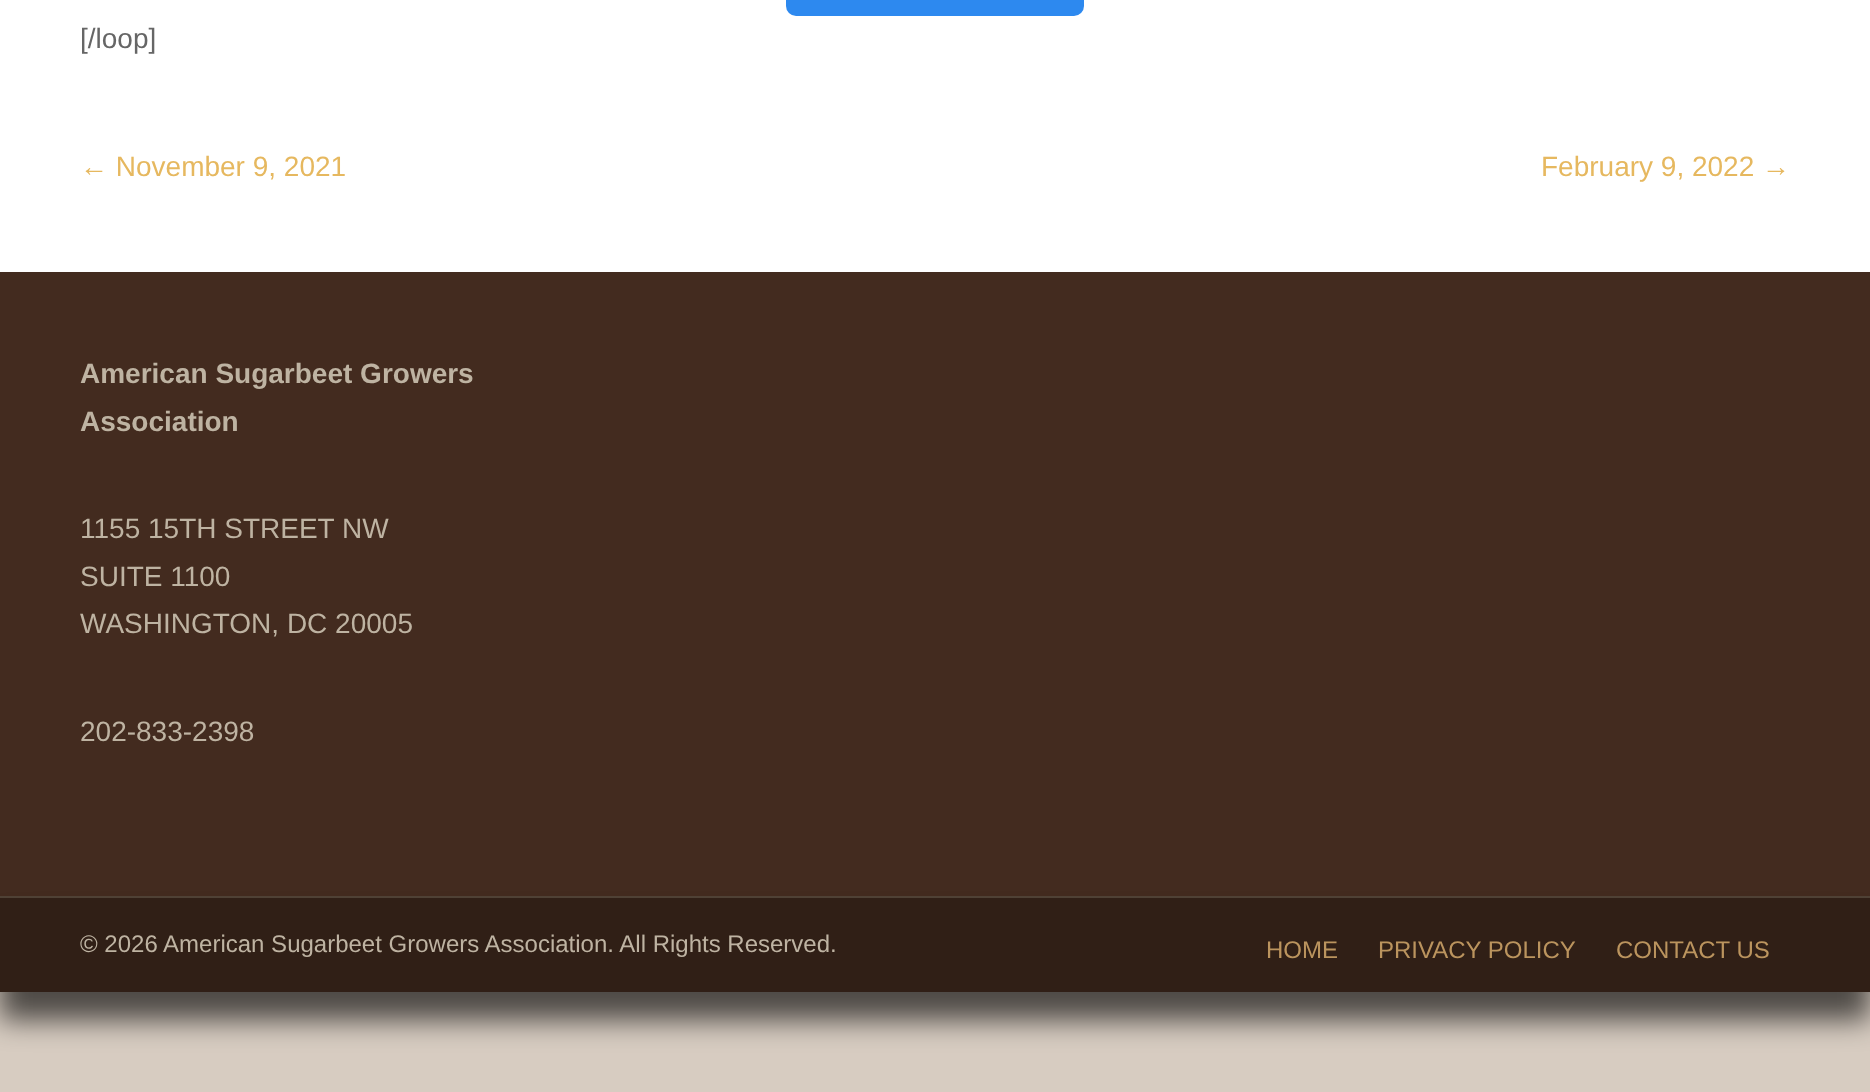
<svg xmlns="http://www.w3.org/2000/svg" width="1870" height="1092">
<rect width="100%" height="100%" fill="#d7ccc1"/>
<rect width="1870" height="272" fill="#fff"/>
<rect x="786" y="-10" width="298" height="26" rx="10" fill="#2d89ef"/>
<text x="80" y="48" style="font-family:Liberation Sans;font-size:28px;fill:#666">[/loop]</text>
<text x="80" y="176" style="font-family:Liberation Sans;font-size:28px;fill:#e6b85f">← November 9, 2021</text>
<text x="1541" y="176" style="font-family:Liberation Sans;font-size:28px;fill:#e6b85f">February 9, 2022 →</text>
<rect y="272" width="1870" height="624" fill="#432b1f"/>
<text x="80" y="383" style="font-family:Liberation Sans;font-size:28px;font-weight:bold;fill:#beb3a2">American Sugarbeet Growers</text>
<text x="80" y="431" style="font-family:Liberation Sans;font-size:28px;font-weight:bold;fill:#beb3a2">Association</text>
<text x="80" y="538" style="font-family:Liberation Sans;font-size:28px;fill:#beb3a2">1155 15TH STREET NW</text>
<text x="80" y="586" style="font-family:Liberation Sans;font-size:28px;fill:#beb3a2">SUITE 1100</text>
<text x="80" y="633" style="font-family:Liberation Sans;font-size:28px;fill:#beb3a2">WASHINGTON, DC 20005</text>
<text x="80" y="741" style="font-family:Liberation Sans;font-size:28px;fill:#beb3a2">202-833-2398</text>
<rect y="924" width="1870" height="96" fill="#000000a3" filter="blur(14px)"/>
<rect y="898" width="1870" height="94" fill="#301f16"/>
<rect y="896" width="1870" height="2" fill="#4f4135"/>
<text x="80" y="952" style="font-family:Liberation Sans;font-size:24px;fill:#beb3a2">© 2026 American Sugarbeet Growers Association. All Rights Reserved.</text>
<text x="1266" y="958" style="font-family:Liberation Sans;font-size:24px;fill:#bb945e">HOME</text>
<text x="1378" y="958" style="font-family:Liberation Sans;font-size:24px;fill:#bb945e">PRIVACY POLICY</text>
<text x="1616" y="958" style="font-family:Liberation Sans;font-size:24px;fill:#bb945e">CONTACT US</text>
</svg>
